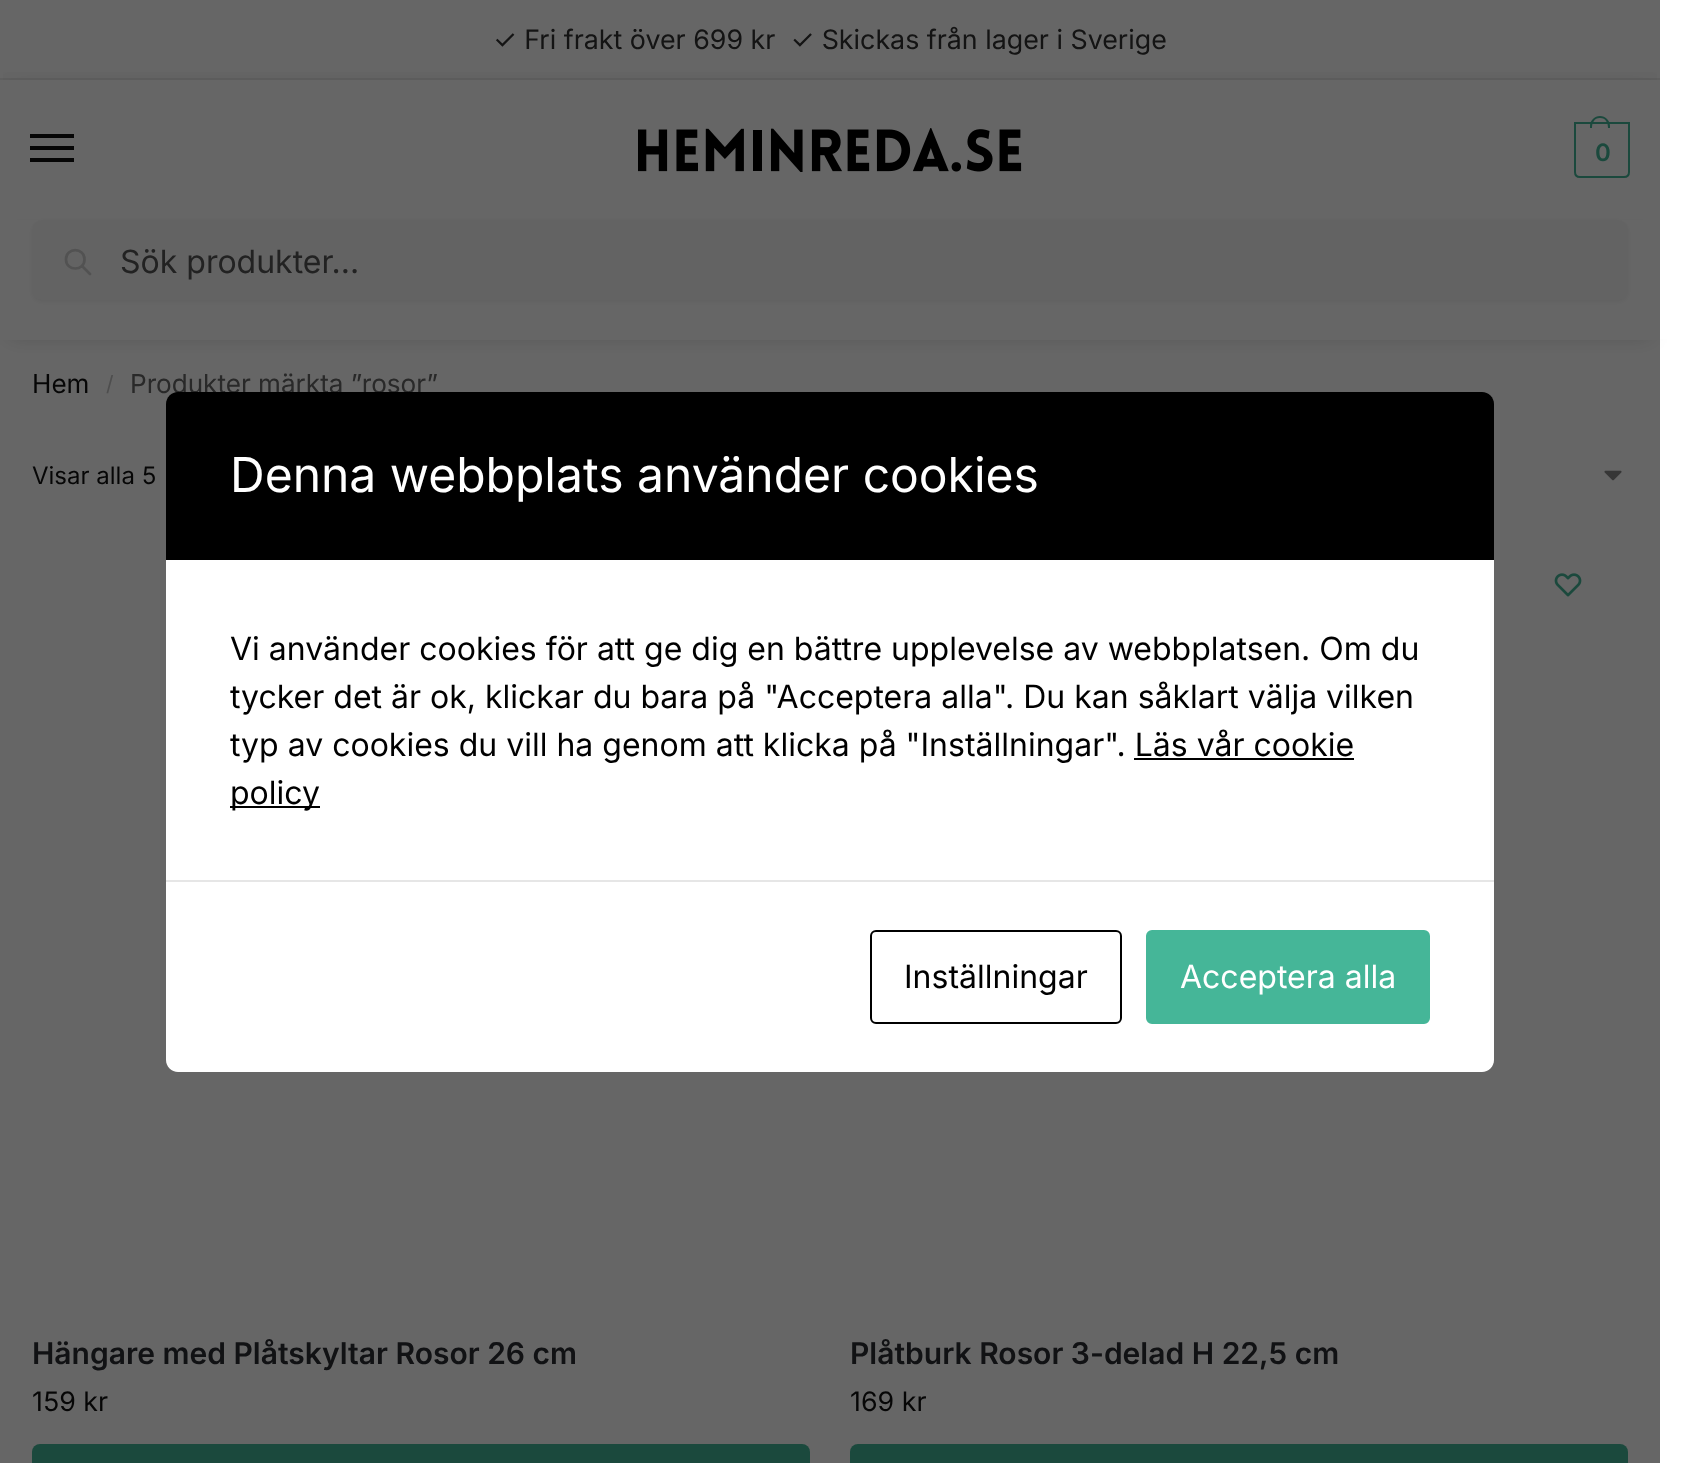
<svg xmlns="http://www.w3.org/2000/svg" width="1690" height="1463">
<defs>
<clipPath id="clip1"><rect x="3" y="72" width="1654" height="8"/></clipPath>
</defs>
<rect width="100%" height="100%" fill="#fff"/>
<rect y="78" width="1660" height="2" fill="#eee"/>
<text x="493" y="49" style="font-family:Inter;font-size:26.8px;fill:#323232" xml:space="preserve">✓ Fri frakt över 699 kr  ✓ Skickas från lager i Sverige</text>
<g clip-path="url(#clip1)">
<rect y="82" width="1660" height="140" fill="#00000014" filter="blur(15px)"/>
</g>
<rect x="30" y="134" width="44" height="4" fill="#111"/>
<rect x="30" y="146" width="44" height="4" fill="#111"/>
<rect x="30" y="158" width="44" height="4" fill="#111"/>
<image x="638" y="128" width="384" height="44" href="media/1.png"/>
<path d="M1575 123h54v49c0 3-2 5-5 5h-44c-3 0-5-2-5-5z" fill="none" stroke="#45b698" stroke-width="2"/>
<path d="M1600 116c5.5 0 10 4.5 10 10v2h-20v-2c0-5.5 4.5-10 10-10zm0 2c6 0 8 5 8 10h-16c0-5 2-10 8-10z" fill="#45b698" fill-rule="evenodd"/>
<text x="1595" y="161" style="font-family:Inter;font-size:24px;font-weight:600;letter-spacing:-1px;fill:#45b698">0</text>
<rect x="10" y="236" width="1640" height="100" fill="#0000002e" filter="blur(10px)"/>
<rect y="220" width="1660" height="120" fill="#fff"/>
<rect x="32" y="222" width="1596" height="80" rx="10" fill="#0000000d" filter="blur(2px)"/>
<rect x="32" y="220" width="1596" height="80" rx="10" fill="#f8f8f8"/>
<path d="M90 274l-8-8m2.5-6.5c0 12-18.5 12-18.5 0c0-12.5 18.5-12.5 18.5 0z" fill="none" stroke="#ccc" stroke-width="2.7" stroke-linecap="round" stroke-linejoin="round"/>
<text x="120" y="273" style="font-family:Inter;font-size:32px;fill:#555">Sök produkter...</text>
<text x="32" y="393" style="font-family:Inter;font-size:26.1px;fill:#111">Hem</text>
<text x="106" y="391" style="font-family:Inter;font-size:21px;fill:#c2c2c2">/</text>
<text x="130" y="393" style="font-family:Inter;font-size:26.1px;fill:#666">Produkter märkta ”rosor”</text>
<text x="32" y="484" style="font-family:Inter;font-size:24px;fill:#111">Visar alla 5</text>
<image x="1604" y="470" width="18" height="11" href="media/2.png"/>
<text x="32" y="1364" style="font-family:Inter;font-size:30px;font-weight:600;fill:#2c2d33">Hängare med Plåtskyltar Rosor 26 cm</text>
<text x="32" y="1411" style="font-family:Inter;font-size:26.8px;fill:#111">159 kr</text>
<rect x="32" y="1444" width="778" height="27" rx="8" fill="#45b698"/>
<image x="1554" y="573" width="28" height="24" href="media/3.png"/>
<text x="850" y="1364" style="font-family:Inter;font-size:30px;font-weight:600;fill:#2c2d33">Plåtburk Rosor 3-delad H 22,5 cm</text>
<text x="850" y="1411" style="font-family:Inter;font-size:26.8px;fill:#111">169 kr</text>
<rect x="850" y="1444" width="778" height="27" rx="8" fill="#45b698"/>
<rect width="1660" height="1463" fill="#00000099"/>
<rect x="1660" y="72" width="17" height="267" fill="#fff"/>
<path d="M178 392h1304c6.5 0 12 5.5 12 12v156h-1328v-156c0-6.5 5.5-12 12-12z" fill="#000"/>
<text x="230" y="492" style="font-family:Inter;font-size:48px;fill:#fff">Denna webbplats använder cookies</text>
<rect x="166" y="560" width="1328" height="320" fill="#fff"/>
<text x="230" y="660" style="font-family:Inter;font-size:32px;fill:#000">Vi använder cookies för att ge dig en bättre upplevelse av webbplatsen. Om du</text>
<text x="230" y="708" style="font-family:Inter;font-size:32px;fill:#000">tycker det är ok, klickar du bara på "Acceptera alla". Du kan såklart välja vilken</text>
<text x="230" y="756" style="font-family:Inter;font-size:32px;fill:#000">typ av cookies du vill ha genom att klicka på "Inställningar". Läs vår cookie</text>
<rect x="230" y="806" width="90" height="2" fill="#000"/>
<text x="230" y="804" style="font-family:Inter;font-size:32px;fill:#000">policy</text>
<rect x="1134" y="758" width="220" height="2" fill="#000"/>
<path d="M166 880h1328v180c0 6.5-5.5 12-12 12h-1304c-6.5 0-12-5.5-12-12z" fill="#fff"/>
<rect x="166" y="880" width="1328" height="2" fill="#e6e6e6"/>
<rect x="871" y="931" width="250" height="92" rx="5" fill="none" stroke="#000" stroke-width="2"/>
<text x="904" y="988" style="font-family:Inter;font-size:32px;fill:#000">Inställningar</text>
<rect x="1147" y="931" width="282" height="92" rx="5" fill="#45b698" stroke="#45b698" stroke-width="2"/>
<text x="1180" y="988" style="font-family:Inter;font-size:32px;fill:#fff">Acceptera alla</text>
</svg>
